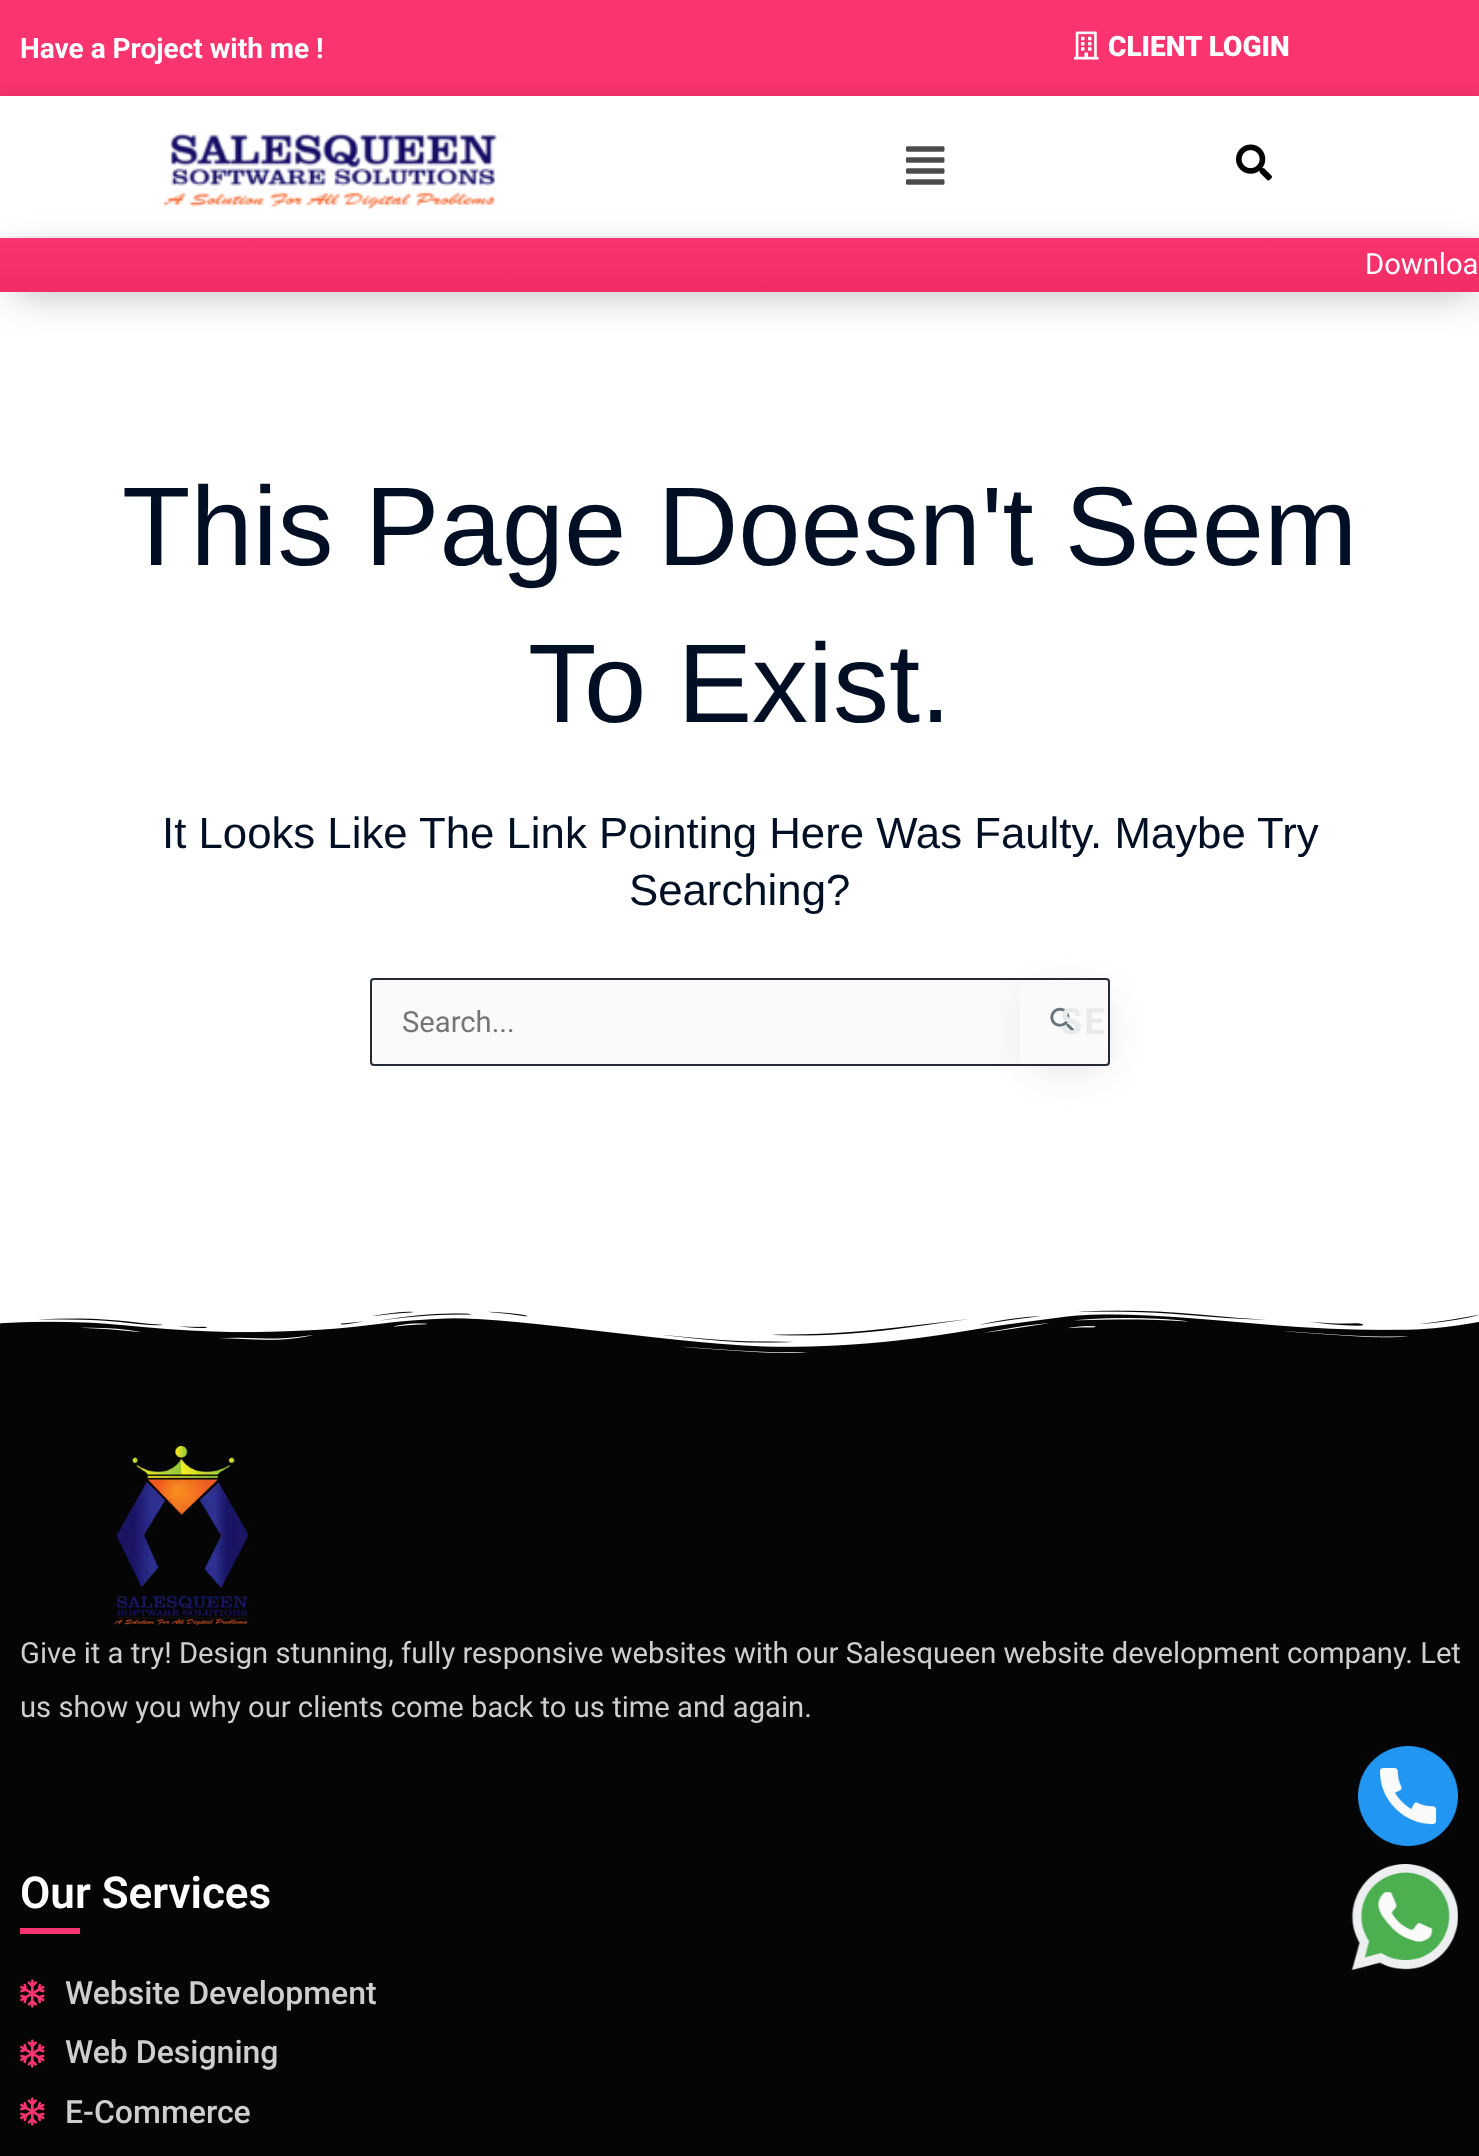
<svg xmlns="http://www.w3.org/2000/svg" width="1479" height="2156">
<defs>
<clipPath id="clip1"><path d="M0 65h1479v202h-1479zm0 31h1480v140h-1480z" clip-rule="evenodd"/></clipPath>
<linearGradient id="g1" gradientUnits="userSpaceOnUse" x1="740" y1="238" x2="740" y2="292"><stop offset="0" stop-color="#fa346e"/><stop offset="1" stop-color="#f02d66"/></linearGradient>
<clipPath id="clip2"><path d="M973 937h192v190h-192zm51 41h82c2 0 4 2 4 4v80c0 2-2 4-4 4h-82c-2 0-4-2-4-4v-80c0-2 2-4 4-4z" clip-rule="evenodd"/></clipPath>
</defs>
<rect width="100%" height="100%" fill="#fff"/>
<rect width="1479" height="96" fill="#fa346e"/>
<text x="20" y="58" style="font-family:Roboto;font-size:28px;font-weight:bold;fill:#fff">Have a Project with me !</text>
<image x="1074" y="31" width="25" height="29" href="media/1.png"/>
<text x="1108" y="56" style="font-family:Roboto;font-size:28px;font-weight:900;fill:#fff">CLIENT LOGIN</text>
<g clip-path="url(#clip1)">
<rect y="96" width="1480" height="140" fill="#0000001c" filter="blur(10px)"/>
</g>
<image x="164" y="133" width="333" height="77" href="media/2.png"/>
<image x="906" y="146" width="39" height="39" href="media/3.png"/>
<image x="1236" y="144" width="36" height="37" href="media/4.png"/>
<rect x="14" y="258" width="1460" height="34" fill="#0000004d" filter="blur(20px)"/>
<rect y="238" width="1479" height="54" fill="url(#g1)"/>
<text x="1365" y="274" style="font-family:Roboto;font-size:29.2px;fill:#fff">Downloa</text>
<text x="122" y="565" style="font-family:Liberation Sans;font-size:112px;fill:#000f23">This Page Doesn't Seem</text>
<text x="528" y="722" style="font-family:Liberation Sans;font-size:112px;fill:#000f23">To Exist.</text>
<text x="162" y="848" style="font-family:Liberation Sans;font-size:43.75px;fill:#000f23">It Looks Like The Link Pointing Here Was Faulty. Maybe Try</text>
<text x="629" y="905" style="font-family:Liberation Sans;font-size:43.75px;fill:#000f23">Searching?</text>
<rect x="371" y="979" width="738" height="86" rx="3" fill="#fafafa" stroke="#242a36" stroke-width="2"/>
<image x="1050" y="1007" width="26" height="27" href="media/5.png"/>
<text x="402" y="1032" style="font-family:Roboto;font-size:29.2px;fill:#757575">Search...</text>
<g clip-path="url(#clip2)">
<rect x="1034" y="998" width="70" height="68" fill="#00000021" filter="blur(20px)"/>
</g>
<text x="1060" y="1034" style="font-family:Roboto;font-size:36px;font-weight:bold;letter-spacing:2px;fill:#e9eaeb">SE</text>
<rect y="1310" width="1479" height="846" fill="#050505"/>
<image x="0" y="1306" width="1479" height="47" href="media/6.png"/>
<image x="114" y="1446" width="135" height="180" href="media/7.png"/>
<text x="20" y="1663" style="font-family:Roboto;font-size:29.2px;fill:#cecece">Give it a try! Design stunning, fully responsive websites with our Salesqueen website development company. Let</text>
<text x="20" y="1717" style="font-family:Roboto;font-size:29.2px;fill:#cecece">us show you why our clients come back to us time and again.</text>
<text x="20" y="1908" style="font-family:Roboto;font-size:44px;font-weight:600;fill:#fff">Our Services</text>
<rect x="20" y="1928" width="60" height="6" fill="#fa346e"/>
<image x="20" y="1979" width="25" height="29" href="media/8.png"/>
<text x="65" y="2004" style="font-family:Roboto;font-size:32px;font-weight:500;fill:#cecece">Website Development</text>
<image x="20" y="2039" width="25" height="29" href="media/8.png"/>
<text x="65" y="2063" style="font-family:Roboto;font-size:32px;font-weight:500;fill:#cecece">Web Designing</text>
<image x="20" y="2097" width="25" height="29" href="media/8.png"/>
<text x="65" y="2123" style="font-family:Roboto;font-size:32px;font-weight:500;fill:#cecece">E-Commerce</text>
<image x="1358" y="1746" width="100" height="100" href="media/9.png"/>
<image x="1351" y="1864" width="107" height="106" href="media/10.png"/>
</svg>
